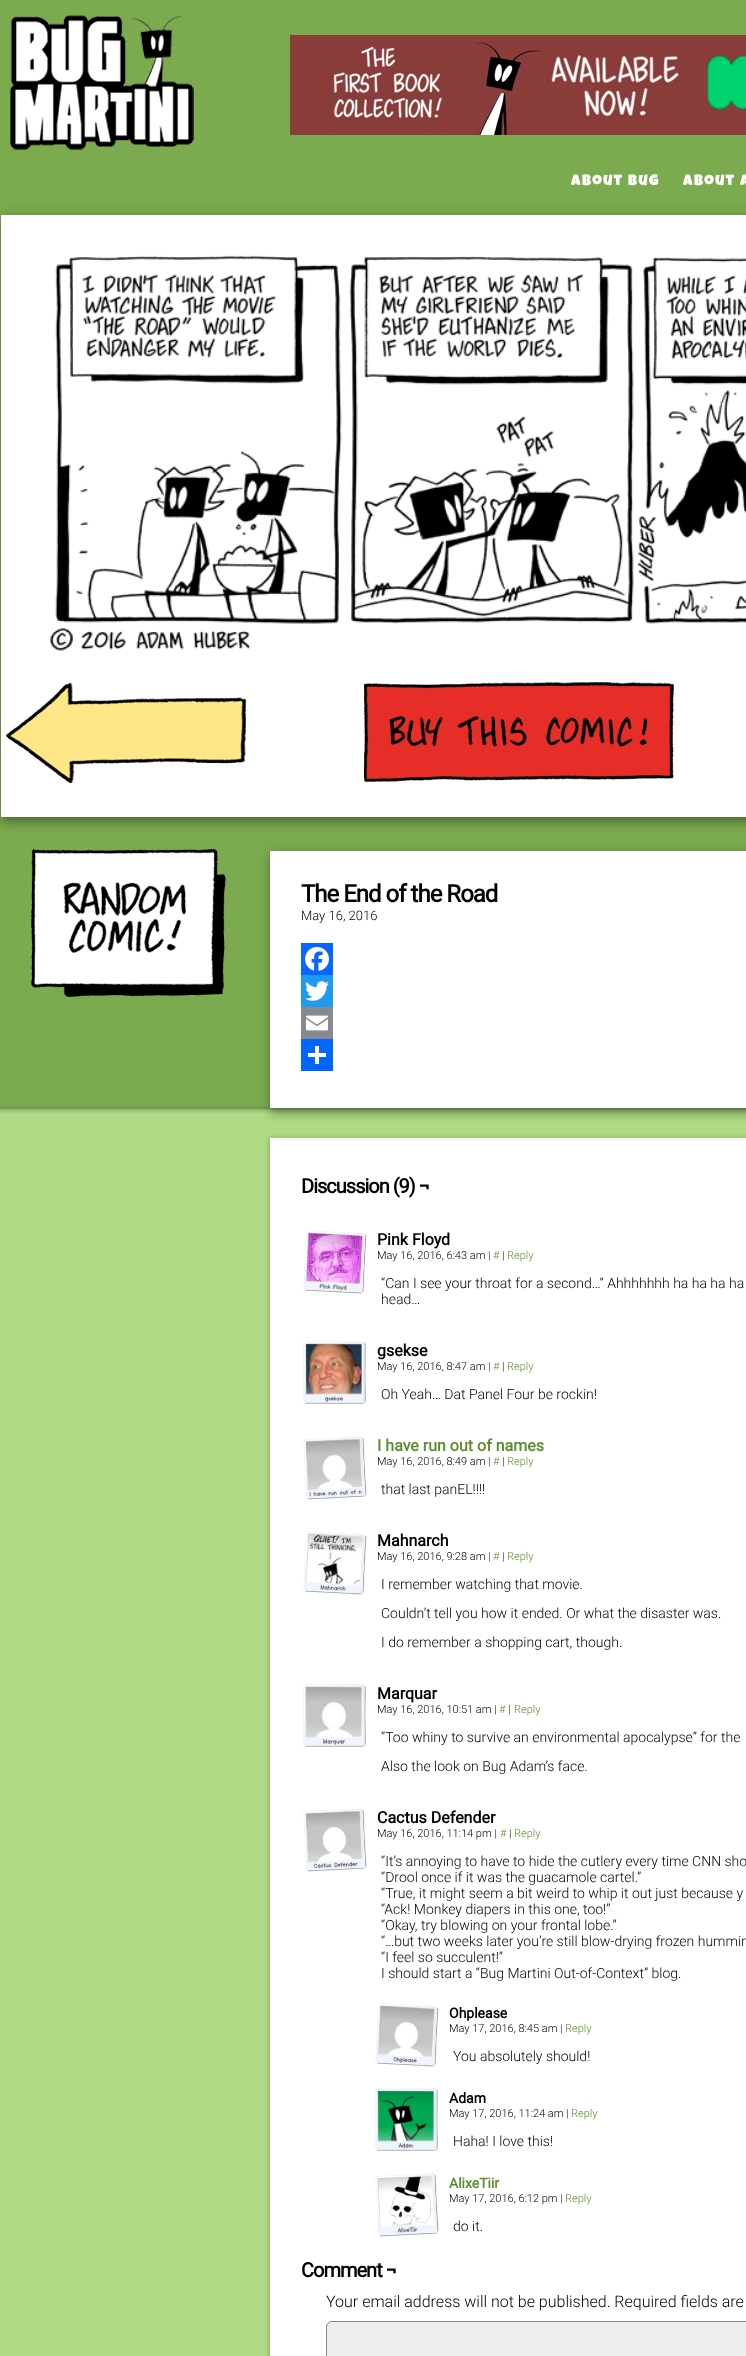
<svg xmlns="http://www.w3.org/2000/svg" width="746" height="2356">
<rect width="100%" height="100%" fill="#afdb84"/>
<image x="0" y="0" width="746" height="1113" href="media/1.png"/>
<image x="10" y="15" width="184" height="135" href="media/2.png"/>
<image x="290" y="35" width="456" height="100" href="media/3.png"/>
<text x="571" y="185" style="font-family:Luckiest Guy;font-size:15px;letter-spacing:1.5px;fill:#fff">About Bug</text>
<text x="683" y="185" style="font-family:Luckiest Guy;font-size:15px;letter-spacing:1.5px;fill:#fff">About A</text>
<rect x="1" y="221" width="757" height="602" fill="#0000003d" filter="blur(4px)"/>
<rect x="2" y="216" width="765" height="603" fill="#00000029" filter="blur(7px)"/>
<rect x="1" y="215" width="745" height="602" fill="#fff"/>
<image x="49" y="255" width="697" height="396" href="media/4.png"/>
<image x="6" y="683" width="240" height="100" href="media/5.png"/>
<image x="364" y="682" width="310" height="100" href="media/6.png"/>
<image x="31" y="849" width="195" height="148" href="media/7.png"/>
<rect x="270" y="857" width="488" height="257" fill="#0000003d" filter="blur(4px)"/>
<rect x="271" y="852" width="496" height="258" fill="#00000029" filter="blur(7px)"/>
<rect x="270" y="851" width="476" height="257" fill="#fff"/>
<text x="301" y="902" style="font-family:Roboto;font-size:24px;font-weight:bold;letter-spacing:-1px;fill:#000">The End of the Road</text>
<text x="301" y="920" style="font-family:Roboto;font-size:13px;font-weight:300;fill:#000">May 16, 2016</text>
<rect x="301" y="943" width="32" height="32" fill="#0866ff"/>
<image x="305" y="947" width="24" height="24" href="media/8.png"/>
<rect x="301" y="975" width="32" height="32" fill="#1d9bf0"/>
<image x="305" y="981" width="24" height="20" href="media/9.png"/>
<rect x="301" y="1007" width="32" height="32" fill="#888990"/>
<image x="306" y="1015" width="22" height="16" href="media/10.png"/>
<rect x="301" y="1039" width="32" height="32" fill="#0166ff"/>
<rect x="315" y="1046" width="4" height="18" fill="#fff"/>
<rect x="308" y="1053" width="18" height="4" fill="#fff"/>
<rect x="271" y="1140" width="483" height="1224" fill="#0000003d" filter="blur(2.5px)"/>
<rect x="270" y="1139" width="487" height="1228" fill="#00000029" filter="blur(3.5px)"/>
<rect x="270" y="1138" width="476" height="1218" fill="#fff"/>
<text x="301" y="1193" style="font-family:Roboto;font-size:20px;font-weight:bold;letter-spacing:-1px;fill:#000">Discussion (9) ¬</text>
<image x="303" y="1230" width="64" height="64" href="media/11.png"/>
<text x="377" y="1245" style="font-family:Roboto;font-size:16px;font-weight:bold;fill:#000">Pink Floyd</text>
<text x="377" y="1259" style="font-family:Roboto;font-size:11px;font-weight:300;fill:#000">May 16, 2016, 6:43 am |</text>
<text x="493" y="1259" style="font-family:Roboto;font-size:11px;font-weight:300;fill:#5b8d2b">#</text>
<text x="502" y="1259" style="font-family:Roboto;font-size:11px;font-weight:300;fill:#000">|</text>
<text x="507" y="1259" style="font-family:Roboto;font-size:11px;font-weight:300;fill:#5b8d2b">Reply</text>
<text x="381" y="1288" style="font-family:Roboto;font-size:14px;font-weight:300;fill:#000">“Can I see your throat for a second…” Ahhhhhhh ha ha ha ha</text>
<text x="381" y="1304" style="font-family:Roboto;font-size:14px;font-weight:300;fill:#000">head…</text>
<image x="303" y="1341" width="63" height="63" href="media/12.png"/>
<text x="377" y="1356" style="font-family:Roboto;font-size:16px;font-weight:bold;fill:#000">gsekse</text>
<text x="377" y="1370" style="font-family:Roboto;font-size:11px;font-weight:300;fill:#000">May 16, 2016, 8:47 am |</text>
<text x="493" y="1370" style="font-family:Roboto;font-size:11px;font-weight:300;fill:#5b8d2b">#</text>
<text x="502" y="1370" style="font-family:Roboto;font-size:11px;font-weight:300;fill:#000">|</text>
<text x="507" y="1370" style="font-family:Roboto;font-size:11px;font-weight:300;fill:#5b8d2b">Reply</text>
<text x="381" y="1399" style="font-family:Roboto;font-size:14px;font-weight:300;fill:#000">Oh Yeah… Dat Panel Four be rockin!</text>
<image x="303" y="1436" width="64" height="64" href="media/13.png"/>
<text x="377" y="1451" style="font-family:Roboto;font-size:16px;font-weight:bold;fill:#5b8d2b">I have run out of names</text>
<text x="377" y="1465" style="font-family:Roboto;font-size:11px;font-weight:300;fill:#000">May 16, 2016, 8:49 am |</text>
<text x="493" y="1465" style="font-family:Roboto;font-size:11px;font-weight:300;fill:#5b8d2b">#</text>
<text x="502" y="1465" style="font-family:Roboto;font-size:11px;font-weight:300;fill:#000">|</text>
<text x="507" y="1465" style="font-family:Roboto;font-size:11px;font-weight:300;fill:#5b8d2b">Reply</text>
<text x="381" y="1494" style="font-family:Roboto;font-size:14px;font-weight:300;fill:#000">that last panEL!!!!</text>
<image x="303" y="1531" width="64" height="64" href="media/14.png"/>
<text x="377" y="1546" style="font-family:Roboto;font-size:16px;font-weight:bold;fill:#000">Mahnarch</text>
<text x="377" y="1560" style="font-family:Roboto;font-size:11px;font-weight:300;fill:#000">May 16, 2016, 9:28 am |</text>
<text x="493" y="1560" style="font-family:Roboto;font-size:11px;font-weight:300;fill:#5b8d2b">#</text>
<text x="502" y="1560" style="font-family:Roboto;font-size:11px;font-weight:300;fill:#000">|</text>
<text x="507" y="1560" style="font-family:Roboto;font-size:11px;font-weight:300;fill:#5b8d2b">Reply</text>
<text x="381" y="1589" style="font-family:Roboto;font-size:14px;font-weight:300;fill:#000">I remember watching that movie.</text>
<text x="381" y="1618" style="font-family:Roboto;font-size:14px;font-weight:300;fill:#000">Couldn’t tell you how it ended. Or what the disaster was.</text>
<text x="381" y="1647" style="font-family:Roboto;font-size:14px;font-weight:300;fill:#000">I do remember a shopping cart, though.</text>
<image x="303" y="1684" width="63" height="63" href="media/15.png"/>
<text x="377" y="1699" style="font-family:Roboto;font-size:16px;font-weight:bold;fill:#000">Marquar</text>
<text x="377" y="1713" style="font-family:Roboto;font-size:11px;font-weight:300;fill:#000">May 16, 2016, 10:51 am |</text>
<text x="499" y="1713" style="font-family:Roboto;font-size:11px;font-weight:300;fill:#5b8d2b">#</text>
<text x="508" y="1713" style="font-family:Roboto;font-size:11px;font-weight:300;fill:#000">|</text>
<text x="514" y="1713" style="font-family:Roboto;font-size:11px;font-weight:300;fill:#5b8d2b">Reply</text>
<text x="381" y="1742" style="font-family:Roboto;font-size:14px;font-weight:300;fill:#000">“Too whiny to survive an environmental apocalypse” for the</text>
<text x="381" y="1771" style="font-family:Roboto;font-size:14px;font-weight:300;fill:#000">Also the look on Bug Adam’s face.</text>
<image x="303" y="1808" width="64" height="64" href="media/16.png"/>
<text x="377" y="1823" style="font-family:Roboto;font-size:16px;font-weight:bold;fill:#000">Cactus Defender</text>
<text x="377" y="1837" style="font-family:Roboto;font-size:11px;font-weight:300;fill:#000">May 16, 2016, 11:14 pm |</text>
<text x="500" y="1837" style="font-family:Roboto;font-size:11px;font-weight:300;fill:#5b8d2b">#</text>
<text x="509" y="1837" style="font-family:Roboto;font-size:11px;font-weight:300;fill:#000">|</text>
<text x="514" y="1837" style="font-family:Roboto;font-size:11px;font-weight:300;fill:#5b8d2b">Reply</text>
<text x="381" y="1866" style="font-family:Roboto;font-size:14px;font-weight:300;fill:#000">“It’s annoying to have to hide the cutlery every time CNN sho</text>
<text x="381" y="1882" style="font-family:Roboto;font-size:14px;font-weight:300;fill:#000">“Drool once if it was the guacamole cartel.”</text>
<text x="381" y="1898" style="font-family:Roboto;font-size:14px;font-weight:300;fill:#000">“True, it might seem a bit weird to whip it out just because y</text>
<text x="381" y="1914" style="font-family:Roboto;font-size:14px;font-weight:300;fill:#000">“Ack! Monkey diapers in this one, too!”</text>
<text x="381" y="1930" style="font-family:Roboto;font-size:14px;font-weight:300;fill:#000">“Okay, try blowing on your frontal lobe.”</text>
<text x="381" y="1946" style="font-family:Roboto;font-size:14px;font-weight:300;fill:#000">“…but two weeks later you’re still blow-drying frozen hummin</text>
<text x="381" y="1962" style="font-family:Roboto;font-size:14px;font-weight:300;fill:#000">“I feel so succulent!”</text>
<text x="381" y="1978" style="font-family:Roboto;font-size:14px;font-weight:300;fill:#000">I should start a “Bug Martini Out-of-Context” blog.</text>
<image x="375" y="2003" width="64" height="64" href="media/17.png"/>
<text x="449" y="2018" style="font-family:Roboto;font-size:14px;font-weight:bold;fill:#000">Ohplease</text>
<text x="449" y="2032" style="font-family:Roboto;font-size:11px;font-weight:300;fill:#000">May 17, 2016, 8:45 am |</text>
<text x="565" y="2032" style="font-family:Roboto;font-size:11px;font-weight:300;fill:#5b8d2b">Reply</text>
<text x="453" y="2061" style="font-family:Roboto;font-size:14px;font-weight:300;fill:#000">You absolutely should!</text>
<image x="375" y="2088" width="63" height="63" href="media/18.png"/>
<text x="449" y="2103" style="font-family:Roboto;font-size:14px;font-weight:bold;fill:#000">Adam</text>
<text x="449" y="2117" style="font-family:Roboto;font-size:11px;font-weight:300;fill:#000">May 17, 2016, 11:24 am |</text>
<text x="571" y="2117" style="font-family:Roboto;font-size:11px;font-weight:300;fill:#5b8d2b">Reply</text>
<text x="453" y="2146" style="font-family:Roboto;font-size:14px;font-weight:300;fill:#000">Haha! I love this!</text>
<image x="375" y="2173" width="64" height="64" href="media/19.png"/>
<text x="449" y="2188" style="font-family:Roboto;font-size:14px;font-weight:bold;fill:#5b8d2b">AlixeTiir</text>
<text x="449" y="2202" style="font-family:Roboto;font-size:11px;font-weight:300;fill:#000">May 17, 2016, 6:12 pm |</text>
<text x="565" y="2202" style="font-family:Roboto;font-size:11px;font-weight:300;fill:#5b8d2b">Reply</text>
<text x="453" y="2231" style="font-family:Roboto;font-size:14px;font-weight:300;fill:#000">do it.</text>
<text x="301" y="2277" style="font-family:Roboto;font-size:20px;font-weight:bold;letter-spacing:-1px;fill:#000">Comment ¬</text>
<text x="326" y="2307" style="font-family:Roboto;font-size:16px;font-weight:300;fill:#000">Your email address will not be published. Required fields are</text>
<rect x="326.5" y="2321.5" width="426" height="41" rx="5.5" fill="#eee" stroke="#888"/>
</svg>
